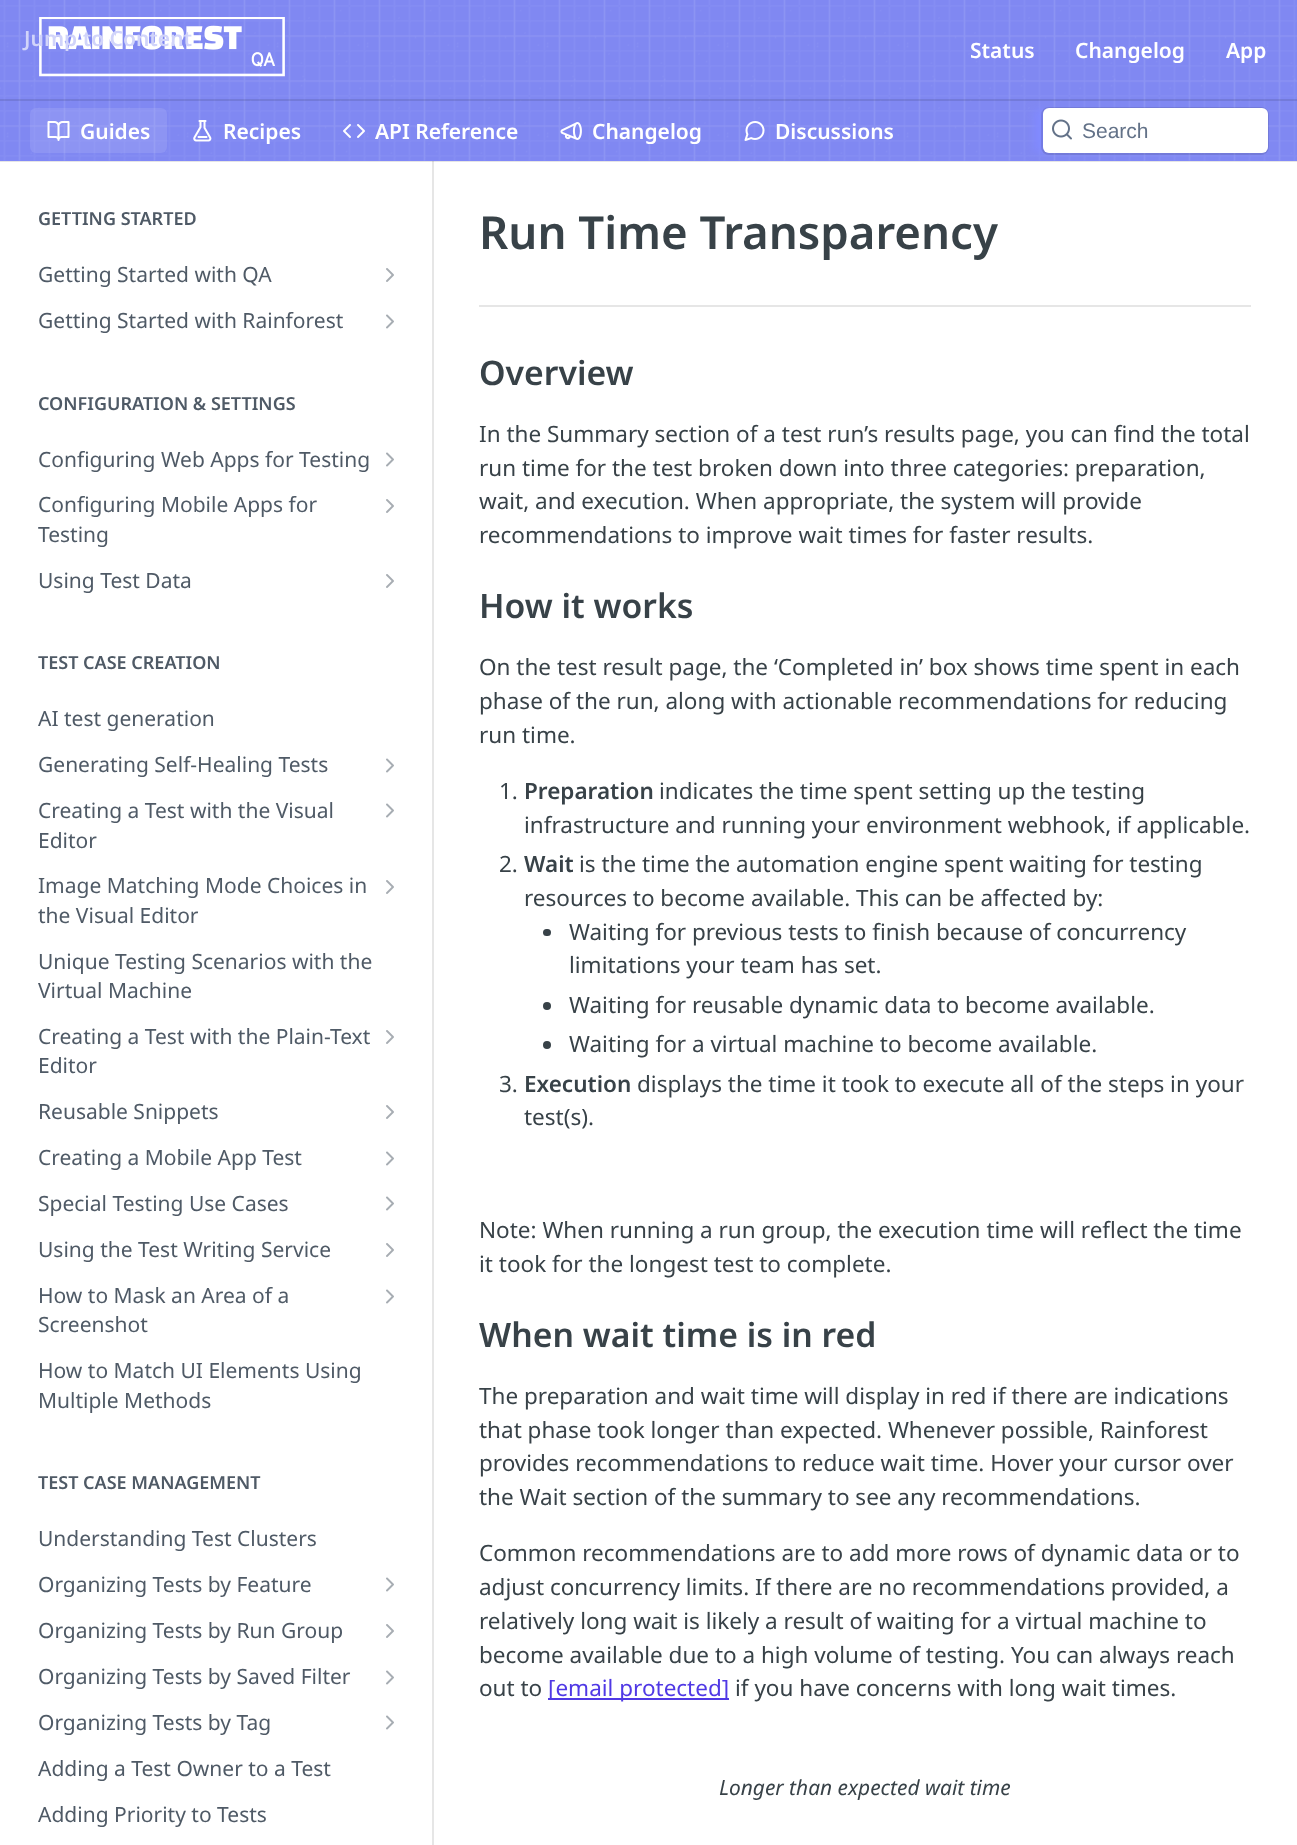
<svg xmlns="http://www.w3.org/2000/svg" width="1297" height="1845">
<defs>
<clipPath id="clip1"><rect x="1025" y="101" width="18" height="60"/></clipPath>
</defs>
<rect width="100%" height="100%" fill="#fff"/>
<path d="M2 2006h432v-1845h-2v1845z" fill="#e6e6e6"/>
<path d="M0 160v2h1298v-160v158z" fill="#0000001a"/>
<rect width="1297" height="161" fill="#818aff"/>
<image x="0" y="0" width="1297" height="161" href="media/1.png"/>
<rect y="99" width="1297" height="2" fill="#0000001a"/>
<image x="39" y="17" width="246" height="60" href="media/2.png"/>
<text x="24" y="46" style="font-family:Noto Sans;font-size:21px;font-weight:600;fill:#d1d4fa">Jump to Content</text>
<text x="970" y="58" style="font-family:Noto Sans;font-size:21px;font-weight:600;fill:#fff">Status</text>
<text x="1075" y="58" style="font-family:Noto Sans;font-size:21px;font-weight:600;fill:#fff">Changelog</text>
<text x="1226" y="58" style="font-family:Noto Sans;font-size:21px;font-weight:600;fill:#fff">App</text>
<rect x="30" y="108" width="137" height="45" rx="6" fill="#ffffff1a"/>
<image x="47" y="121" width="23" height="20" href="media/3.png"/>
<text x="80" y="139" style="font-family:Noto Sans;font-size:21px;font-weight:600;fill:#fff">Guides</text>
<image x="193" y="120" width="19" height="22" href="media/4.png"/>
<text x="223" y="139" style="font-family:Noto Sans;font-size:21px;font-weight:600;fill:#fff">Recipes</text>
<image x="343" y="124" width="22" height="14" href="media/5.png"/>
<text x="375" y="139" style="font-family:Noto Sans;font-size:21px;font-weight:600;fill:#fff">API Reference</text>
<image x="560" y="122" width="22" height="18" href="media/6.png"/>
<text x="592" y="139" style="font-family:Noto Sans;font-size:21px;font-weight:600;fill:#fff">Changelog</text>
<image x="744" y="121" width="21" height="20" href="media/7.png"/>
<text x="775" y="139" style="font-family:Noto Sans;font-size:21px;font-weight:600;fill:#fff">Discussions</text>
<g clip-path="url(#clip1)">
<rect x="1034" y="110" width="222" height="42" fill="#818aff" filter="blur(4.5px)"/>
</g>
<rect x="1042" y="108" width="226" height="46" rx="7" fill="none" stroke="#0000001a" stroke-width="2"/>
<rect x="1043" y="108" width="225" height="45" rx="6" fill="#fff"/>
<image x="1052" y="119" width="20" height="21" href="media/8.png"/>
<text x="1082" y="138" style="font-family:Liberation Sans;font-size:21px;fill:#637288">Search</text>
<text x="38" y="225" style="font-family:Noto Sans;font-size:18px;font-weight:600;fill:#4f5a66">GETTING STARTED</text>
<text x="38" y="282" style="font-family:Noto Sans;font-size:21px;fill:#4f5a66">Getting Started with QA</text>
<image x="386" y="268" width="8" height="14" href="media/9.png"/>
<text x="38" y="328" style="font-family:Noto Sans;font-size:21px;fill:#4f5a66">Getting Started with Rainforest</text>
<image x="386" y="314" width="8" height="15" href="media/10.png"/>
<text x="38" y="410" style="font-family:Noto Sans;font-size:18px;font-weight:600;fill:#4f5a66">CONFIGURATION &amp; SETTINGS</text>
<text x="38" y="467" style="font-family:Noto Sans;font-size:21px;fill:#4f5a66">Configuring Web Apps for Testing</text>
<image x="386" y="452" width="8" height="15" href="media/10.png"/>
<text x="38" y="512" style="font-family:Noto Sans;font-size:21px;fill:#4f5a66">Configuring Mobile Apps for</text>
<text x="38" y="542" style="font-family:Noto Sans;font-size:21px;fill:#4f5a66">Testing</text>
<image x="386" y="499" width="8" height="14" href="media/9.png"/>
<text x="38" y="588" style="font-family:Noto Sans;font-size:21px;fill:#4f5a66">Using Test Data</text>
<image x="386" y="574" width="8" height="14" href="media/9.png"/>
<text x="38" y="669" style="font-family:Noto Sans;font-size:18px;font-weight:600;fill:#4f5a66">TEST CASE CREATION</text>
<text x="38" y="726" style="font-family:Noto Sans;font-size:21px;fill:#4f5a66">AI test generation</text>
<text x="38" y="772" style="font-family:Noto Sans;font-size:21px;fill:#4f5a66">Generating Self-Healing Tests</text>
<image x="386" y="758" width="8" height="15" href="media/10.png"/>
<text x="38" y="818" style="font-family:Noto Sans;font-size:21px;fill:#4f5a66">Creating a Test with the Visual</text>
<text x="38" y="848" style="font-family:Noto Sans;font-size:21px;fill:#4f5a66">Editor</text>
<image x="386" y="803" width="8" height="15" href="media/10.png"/>
<text x="38" y="893" style="font-family:Noto Sans;font-size:21px;fill:#4f5a66">Image Matching Mode Choices in</text>
<text x="38" y="923" style="font-family:Noto Sans;font-size:21px;fill:#4f5a66">the Visual Editor</text>
<image x="386" y="880" width="8" height="14" href="media/9.png"/>
<text x="38" y="969" style="font-family:Noto Sans;font-size:21px;fill:#4f5a66">Unique Testing Scenarios with the</text>
<text x="38" y="998" style="font-family:Noto Sans;font-size:21px;fill:#4f5a66">Virtual Machine</text>
<text x="38" y="1044" style="font-family:Noto Sans;font-size:21px;fill:#4f5a66">Creating a Test with the Plain-Text</text>
<text x="38" y="1073" style="font-family:Noto Sans;font-size:21px;fill:#4f5a66">Editor</text>
<image x="386" y="1030" width="8" height="14" href="media/9.png"/>
<text x="38" y="1119" style="font-family:Noto Sans;font-size:21px;fill:#4f5a66">Reusable Snippets</text>
<image x="386" y="1105" width="8" height="14" href="media/9.png"/>
<text x="38" y="1165" style="font-family:Noto Sans;font-size:21px;fill:#4f5a66">Creating a Mobile App Test</text>
<image x="386" y="1151" width="8" height="15" href="media/10.png"/>
<text x="38" y="1211" style="font-family:Noto Sans;font-size:21px;fill:#4f5a66">Special Testing Use Cases</text>
<image x="386" y="1196" width="8" height="15" href="media/10.png"/>
<text x="38" y="1257" style="font-family:Noto Sans;font-size:21px;fill:#4f5a66">Using the Test Writing Service</text>
<image x="386" y="1243" width="8" height="14" href="media/9.png"/>
<text x="38" y="1303" style="font-family:Noto Sans;font-size:21px;fill:#4f5a66">How to Mask an Area of a</text>
<text x="38" y="1332" style="font-family:Noto Sans;font-size:21px;fill:#4f5a66">Screenshot</text>
<image x="386" y="1289" width="8" height="15" href="media/10.png"/>
<text x="38" y="1378" style="font-family:Noto Sans;font-size:21px;fill:#4f5a66">How to Match UI Elements Using</text>
<text x="38" y="1408" style="font-family:Noto Sans;font-size:21px;fill:#4f5a66">Multiple Methods</text>
<text x="38" y="1489" style="font-family:Noto Sans;font-size:18px;font-weight:600;fill:#4f5a66">TEST CASE MANAGEMENT</text>
<text x="38" y="1546" style="font-family:Noto Sans;font-size:21px;fill:#4f5a66">Understanding Test Clusters</text>
<text x="38" y="1592" style="font-family:Noto Sans;font-size:21px;fill:#4f5a66">Organizing Tests by Feature</text>
<image x="386" y="1577" width="8" height="15" href="media/10.png"/>
<text x="38" y="1638" style="font-family:Noto Sans;font-size:21px;fill:#4f5a66">Organizing Tests by Run Group</text>
<image x="386" y="1624" width="8" height="14" href="media/9.png"/>
<text x="38" y="1684" style="font-family:Noto Sans;font-size:21px;fill:#4f5a66">Organizing Tests by Saved Filter</text>
<image x="386" y="1670" width="8" height="15" href="media/10.png"/>
<text x="38" y="1730" style="font-family:Noto Sans;font-size:21px;fill:#4f5a66">Organizing Tests by Tag</text>
<image x="386" y="1715" width="8" height="15" href="media/10.png"/>
<text x="38" y="1776" style="font-family:Noto Sans;font-size:21px;fill:#4f5a66">Adding a Test Owner to a Test</text>
<text x="38" y="1822" style="font-family:Noto Sans;font-size:21px;fill:#4f5a66">Adding Priority to Tests</text>
<rect x="479" y="305" width="772" height="2" fill="#e6e6e6"/>
<text x="479" y="249" style="font-family:Noto Sans;font-size:45.6px;font-weight:600;fill:#384248">Run Time Transparency</text>
<text x="479" y="385" style="font-family:Noto Sans;font-size:33.75px;font-weight:600;fill:#384248">Overview</text>
<text x="479" y="442" style="font-family:Noto Sans;font-size:22.5px;fill:#384248">In the Summary section of a test run’s results page, you can find the total</text>
<text x="479" y="476" style="font-family:Noto Sans;font-size:22.5px;fill:#384248">run time for the test broken down into three categories: preparation,</text>
<text x="479" y="509" style="font-family:Noto Sans;font-size:22.5px;fill:#384248">wait, and execution. When appropriate, the system will provide</text>
<text x="479" y="543" style="font-family:Noto Sans;font-size:22.5px;fill:#384248">recommendations to improve wait times for faster results.</text>
<text x="479" y="618" style="font-family:Noto Sans;font-size:33.75px;font-weight:600;fill:#384248">How it works</text>
<text x="479" y="675" style="font-family:Noto Sans;font-size:22.5px;fill:#384248">On the test result page, the ‘Completed in’ box shows time spent in each</text>
<text x="479" y="709" style="font-family:Noto Sans;font-size:22.5px;fill:#384248">phase of the run, along with actionable recommendations for reducing</text>
<text x="479" y="743" style="font-family:Noto Sans;font-size:22.5px;fill:#384248">run time.</text>
<text x="499" y="799" style="font-family:Noto Sans;font-size:22.5px;fill:#384248">1.</text>
<text x="524" y="799" style="font-family:Noto Sans;font-size:22.5px;font-weight:600;fill:#384248">Preparation</text>
<text x="659" y="799" style="font-family:Noto Sans;font-size:22.5px;fill:#384248">indicates the time spent setting up the testing</text>
<text x="524" y="833" style="font-family:Noto Sans;font-size:22.5px;fill:#384248">infrastructure and running your environment webhook, if applicable.</text>
<text x="499" y="872" style="font-family:Noto Sans;font-size:22.5px;fill:#384248">2.</text>
<text x="524" y="872" style="font-family:Noto Sans;font-size:22.5px;font-weight:600;fill:#384248">Wait</text>
<text x="579" y="872" style="font-family:Noto Sans;font-size:22.5px;fill:#384248">is the time the automation engine spent waiting for testing</text>
<text x="524" y="906" style="font-family:Noto Sans;font-size:22.5px;fill:#384248">resources to become available. This can be affected by:</text>
<rect x="543" y="929" width="8" height="7" rx="3.5" fill="#384248"/>
<text x="569" y="940" style="font-family:Noto Sans;font-size:22.5px;fill:#384248">Waiting for previous tests to finish because of concurrency</text>
<text x="569" y="973" style="font-family:Noto Sans;font-size:22.5px;fill:#384248">limitations your team has set.</text>
<circle cx="547" cy="1006" r="4" fill="#384248"/>
<text x="569" y="1013" style="font-family:Noto Sans;font-size:22.5px;fill:#384248">Waiting for reusable dynamic data to become available.</text>
<circle cx="547" cy="1045" r="4" fill="#384248"/>
<text x="569" y="1052" style="font-family:Noto Sans;font-size:22.5px;fill:#384248">Waiting for a virtual machine to become available.</text>
<text x="499" y="1092" style="font-family:Noto Sans;font-size:22.5px;fill:#384248">3.</text>
<text x="524" y="1092" style="font-family:Noto Sans;font-size:22.5px;font-weight:600;fill:#384248">Execution</text>
<text x="637" y="1092" style="font-family:Noto Sans;font-size:22.5px;fill:#384248">displays the time it took to execute all of the steps in your</text>
<text x="524" y="1125" style="font-family:Noto Sans;font-size:22.5px;fill:#384248">test(s).</text>
<text x="479" y="1238" style="font-family:Noto Sans;font-size:22.5px;fill:#384248">Note: When running a run group, the execution time will reflect the time</text>
<text x="479" y="1272" style="font-family:Noto Sans;font-size:22.5px;fill:#384248">it took for the longest test to complete.</text>
<text x="479" y="1347" style="font-family:Noto Sans;font-size:33.75px;font-weight:600;fill:#384248">When wait time is in red</text>
<text x="479" y="1404" style="font-family:Noto Sans;font-size:22.5px;fill:#384248">The preparation and wait time will display in red if there are indications</text>
<text x="479" y="1438" style="font-family:Noto Sans;font-size:22.5px;fill:#384248">that phase took longer than expected. Whenever possible, Rainforest</text>
<text x="479" y="1471" style="font-family:Noto Sans;font-size:22.5px;fill:#384248">provides recommendations to reduce wait time. Hover your cursor over</text>
<text x="479" y="1505" style="font-family:Noto Sans;font-size:22.5px;fill:#384248">the Wait section of the summary to see any recommendations.</text>
<text x="479" y="1561" style="font-family:Noto Sans;font-size:22.5px;fill:#384248">Common recommendations are to add more rows of dynamic data or to</text>
<text x="479" y="1595" style="font-family:Noto Sans;font-size:22.5px;fill:#384248">adjust concurrency limits. If there are no recommendations provided, a</text>
<text x="479" y="1629" style="font-family:Noto Sans;font-size:22.5px;fill:#384248">relatively long wait is likely a result of waiting for a virtual machine to</text>
<text x="479" y="1663" style="font-family:Noto Sans;font-size:22.5px;fill:#384248">become available due to a high volume of testing. You can always reach</text>
<text x="479" y="1696" style="font-family:Noto Sans;font-size:22.5px;fill:#384248">out to</text>
<rect x="548" y="1698" width="181" height="2" fill="#5039e5"/>
<text x="548" y="1696" style="font-family:Noto Sans;font-size:22.5px;fill:#5039e5">[email protected]</text>
<text x="735" y="1696" style="font-family:Noto Sans;font-size:22.5px;fill:#384248">if you have concerns with long wait times.</text>
<text x="719" y="1795" style="font-family:Noto Sans;font-size:20.9px;font-style:italic;fill:#384248">Longer than expected wait time</text>
</svg>
